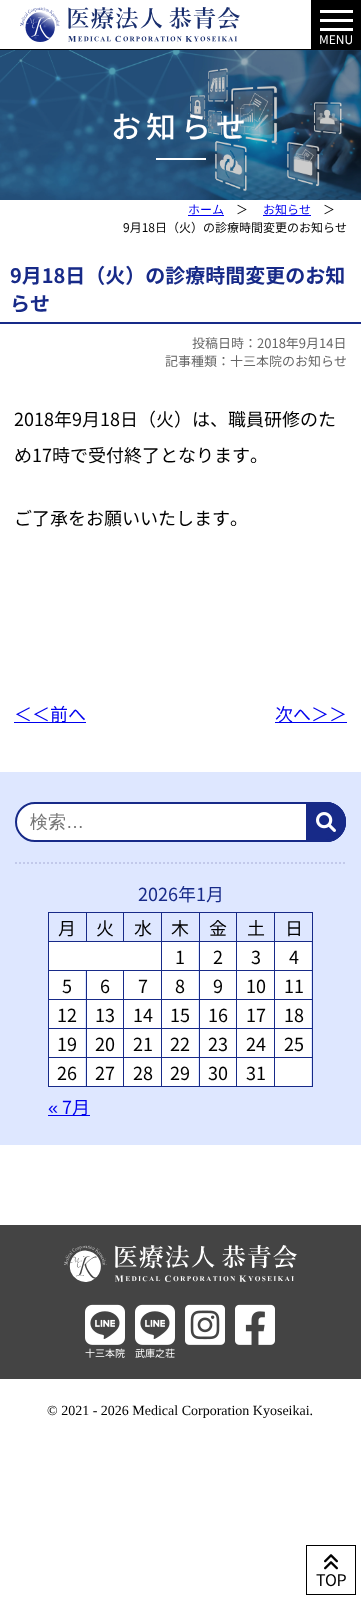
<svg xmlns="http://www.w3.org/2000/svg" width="361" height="1600">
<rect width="100%" height="100%" fill="#fff"/>
<rect y="49" width="311" height="1" fill="#000"/>
<image x="20" y="7" width="220" height="35" href="media/1.png"/>
<rect x="311" width="50" height="50" fill="#000"/>
<rect x="320" y="19" width="33" height="3" fill="#fff"/>
<rect x="320" y="10" width="33" height="3" fill="#fff"/>
<rect x="320" y="28" width="33" height="3" fill="#fff"/>
<text x="319" y="44" style="font-family:Noto Sans JP;font-size:12px;fill:#fff">MENU</text>
<image x="0" y="50" width="361" height="150" href="media/2.png"/>
<text x="111" y="138" style="font-family:Noto Sans JP;font-size:30px;font-weight:500;letter-spacing:5px;fill:#fff">お知らせ</text>
<rect x="156" y="158" width="50" height="2" fill="#fff"/>
<text x="188" y="214" style="font-family:Noto Sans JP;font-size:12px;fill:#00e">ホーム</text>
<rect x="188" y="215" width="36" height="1" fill="#00e"/>
<text x="236" y="214" style="font-family:Noto Sans JP;font-size:12px;fill:#000">＞</text>
<text x="263" y="214" style="font-family:Noto Sans JP;font-size:12px;fill:#00e">お知らせ</text>
<rect x="263" y="215" width="48" height="1" fill="#00e"/>
<text x="323" y="214" style="font-family:Noto Sans JP;font-size:12px;fill:#000">＞</text>
<text x="123" y="232" style="font-family:Noto Sans JP;font-size:12px;fill:#000">9月18日（火）の診療時間変更のお知らせ</text>
<rect y="322" width="361" height="2" fill="#172a88"/>
<text x="10" y="283" style="font-family:Noto Sans JP;font-size:20px;font-weight:bold;fill:#172a88">9月18日（火）の診療時間変更のお知</text>
<text x="10" y="311" style="font-family:Noto Sans JP;font-size:20px;font-weight:bold;fill:#172a88">らせ</text>
<text x="192" y="348" style="font-family:Noto Sans JP;font-size:13px;fill:#666">投稿日時：2018年9月14日</text>
<text x="165" y="366" style="font-family:Noto Sans JP;font-size:13px;fill:#666">記事種類：十三本院のお知らせ</text>
<text x="14" y="426" style="font-family:Noto Sans JP;font-size:18px;fill:#000">2018年9月18日（火）は、職員研修のた</text>
<text x="14" y="462" style="font-family:Noto Sans JP;font-size:18px;fill:#000">め17時で受付終了となります。</text>
<text x="14" y="525" style="font-family:Noto Sans JP;font-size:18px;fill:#000">ご了承をお願いいたします。</text>
<rect x="14" y="722" width="72" height="1" fill="#00e"/>
<text x="14" y="721" style="font-family:Noto Sans JP;font-size:18px;fill:#00e">＜＜前へ</text>
<rect x="275" y="722" width="72" height="1" fill="#00e"/>
<text x="275" y="721" style="font-family:Noto Sans JP;font-size:18px;fill:#00e">次へ＞＞</text>
<rect y="772" width="361" height="373" fill="#dee7ff"/>
<rect x="16" y="803" width="329" height="38" rx="19" fill="#fff" stroke="#172a88" stroke-width="2"/>
<text x="30" y="828" style="font-family:WenQuanYi Zen Hei;font-size:18px;font-weight:500;fill:#757575">検索</text>
<text x="66" y="828" style="font-family:Liberation Sans;font-size:18px;fill:#757575">…</text>
<path d="M306 802h20c11 0 20 9 20 20c0 11-9 20-20 20h-20z" fill="#172a88"/>
<image x="316" y="812" width="20" height="20" href="media/3.png"/>
<path d="M307 803h19c10.5 0 19 8.5 19 19c0 10.5-8.5 19-19 19h-19z" fill="none" stroke="#172a88" stroke-width="2"/>
<path d="M15 863h331" fill="none" stroke="#c2c9ea" stroke-width="2" stroke-dasharray="2 2"/>
<text x="138" y="901" style="font-family:Noto Sans JP;font-size:18px;fill:#172a88">2026年1月</text>
<rect x="48" y="912" width="265" height="1" fill="#172a88"/>
<rect x="48" y="941" width="265" height="1" fill="#172a88"/>
<rect x="48" y="970" width="265" height="1" fill="#172a88"/>
<rect x="48" y="999" width="265" height="1" fill="#172a88"/>
<rect x="48" y="1028" width="265" height="1" fill="#172a88"/>
<rect x="48" y="1057" width="265" height="1" fill="#172a88"/>
<rect x="48" y="1057" width="1" height="30" fill="#172a88"/>
<rect x="48" y="1028" width="1" height="30" fill="#172a88"/>
<rect x="48" y="999" width="1" height="30" fill="#172a88"/>
<rect x="48" y="970" width="1" height="30" fill="#172a88"/>
<rect x="48" y="941" width="1" height="30" fill="#172a88"/>
<rect x="48" y="912" width="1" height="30" fill="#172a88"/>
<rect x="86" y="912" width="1" height="30" fill="#172a88"/>
<text x="58" y="935" style="font-family:Noto Sans JP;font-size:18px;fill:#000">月</text>
<rect x="123" y="912" width="1" height="30" fill="#172a88"/>
<text x="96" y="935" style="font-family:Noto Sans JP;font-size:18px;fill:#000">火</text>
<text x="134" y="935" style="font-family:Noto Sans JP;font-size:18px;fill:#000">水</text>
<text x="171" y="935" style="font-family:Noto Sans JP;font-size:18px;fill:#000">木</text>
<text x="209" y="935" style="font-family:Noto Sans JP;font-size:18px;fill:#000">金</text>
<text x="247" y="935" style="font-family:Noto Sans JP;font-size:18px;fill:#000">土</text>
<text x="285" y="935" style="font-family:Noto Sans JP;font-size:18px;fill:#000">日</text>
<rect x="49" y="942" width="112" height="28" fill="#fff"/>
<rect x="162" y="942" width="36" height="28" fill="#fff"/>
<text x="175" y="964" style="font-family:Noto Sans JP;font-size:18px;fill:#000">1</text>
<rect x="200" y="942" width="36" height="28" fill="#fff"/>
<text x="213" y="964" style="font-family:Noto Sans JP;font-size:18px;fill:#000">2</text>
<rect x="237" y="942" width="37" height="28" fill="#fff"/>
<text x="251" y="964" style="font-family:Noto Sans JP;font-size:18px;fill:#000">3</text>
<rect x="275" y="942" width="36" height="28" fill="#fff"/>
<text x="289" y="964" style="font-family:Noto Sans JP;font-size:18px;fill:#000">4</text>
<rect x="49" y="971" width="36" height="28" fill="#fff"/>
<text x="62" y="993" style="font-family:Noto Sans JP;font-size:18px;fill:#000">5</text>
<rect x="87" y="971" width="36" height="28" fill="#fff"/>
<text x="100" y="993" style="font-family:Noto Sans JP;font-size:18px;fill:#000">6</text>
<rect x="124" y="971" width="37" height="28" fill="#fff"/>
<text x="138" y="993" style="font-family:Noto Sans JP;font-size:18px;fill:#000">7</text>
<rect x="162" y="971" width="36" height="28" fill="#fff"/>
<text x="175" y="993" style="font-family:Noto Sans JP;font-size:18px;fill:#000">8</text>
<rect x="200" y="971" width="36" height="28" fill="#fff"/>
<text x="213" y="993" style="font-family:Noto Sans JP;font-size:18px;fill:#000">9</text>
<rect x="237" y="971" width="37" height="28" fill="#fff"/>
<text x="246" y="993" style="font-family:Noto Sans JP;font-size:18px;fill:#000">10</text>
<rect x="275" y="971" width="36" height="28" fill="#fff"/>
<text x="284" y="993" style="font-family:Noto Sans JP;font-size:18px;fill:#000">11</text>
<rect x="49" y="1000" width="36" height="28" fill="#fff"/>
<text x="57" y="1022" style="font-family:Noto Sans JP;font-size:18px;fill:#000">12</text>
<rect x="87" y="1000" width="36" height="28" fill="#fff"/>
<text x="95" y="1022" style="font-family:Noto Sans JP;font-size:18px;fill:#000">13</text>
<rect x="124" y="1000" width="37" height="28" fill="#fff"/>
<text x="133" y="1022" style="font-family:Noto Sans JP;font-size:18px;fill:#000">14</text>
<rect x="162" y="1000" width="36" height="28" fill="#fff"/>
<text x="170" y="1022" style="font-family:Noto Sans JP;font-size:18px;fill:#000">15</text>
<rect x="200" y="1000" width="36" height="28" fill="#fff"/>
<text x="208" y="1022" style="font-family:Noto Sans JP;font-size:18px;fill:#000">16</text>
<rect x="237" y="1000" width="37" height="28" fill="#fff"/>
<text x="246" y="1022" style="font-family:Noto Sans JP;font-size:18px;fill:#000">17</text>
<rect x="275" y="1000" width="36" height="28" fill="#fff"/>
<text x="284" y="1022" style="font-family:Noto Sans JP;font-size:18px;fill:#000">18</text>
<rect x="49" y="1029" width="36" height="28" fill="#fff"/>
<text x="57" y="1051" style="font-family:Noto Sans JP;font-size:18px;fill:#000">19</text>
<rect x="87" y="1029" width="36" height="28" fill="#fff"/>
<text x="95" y="1051" style="font-family:Noto Sans JP;font-size:18px;fill:#000">20</text>
<rect x="124" y="1029" width="37" height="28" fill="#fff"/>
<text x="133" y="1051" style="font-family:Noto Sans JP;font-size:18px;fill:#000">21</text>
<rect x="162" y="1029" width="36" height="28" fill="#fff"/>
<text x="170" y="1051" style="font-family:Noto Sans JP;font-size:18px;fill:#000">22</text>
<rect x="200" y="1029" width="36" height="28" fill="#fff"/>
<text x="208" y="1051" style="font-family:Noto Sans JP;font-size:18px;fill:#000">23</text>
<rect x="237" y="1029" width="37" height="28" fill="#fff"/>
<text x="246" y="1051" style="font-family:Noto Sans JP;font-size:18px;fill:#000">24</text>
<rect x="275" y="1029" width="36" height="28" fill="#fff"/>
<text x="284" y="1051" style="font-family:Noto Sans JP;font-size:18px;fill:#000">25</text>
<rect x="49" y="1058" width="36" height="28" fill="#fff"/>
<rect x="312" y="912" width="1" height="175" fill="#172a88"/>
<rect x="274" y="1086" width="39" height="1" fill="#172a88"/>
<rect x="274" y="912" width="1" height="175" fill="#172a88"/>
<rect x="236" y="1086" width="39" height="1" fill="#172a88"/>
<rect x="236" y="912" width="1" height="175" fill="#172a88"/>
<rect x="199" y="1086" width="38" height="1" fill="#172a88"/>
<rect x="199" y="912" width="1" height="175" fill="#172a88"/>
<rect x="161" y="1086" width="39" height="1" fill="#172a88"/>
<rect x="161" y="912" width="1" height="175" fill="#172a88"/>
<rect x="123" y="1086" width="39" height="1" fill="#172a88"/>
<rect x="123" y="970" width="1" height="117" fill="#172a88"/>
<rect x="86" y="1086" width="38" height="1" fill="#172a88"/>
<rect x="86" y="970" width="1" height="117" fill="#172a88"/>
<rect x="48" y="1086" width="39" height="1" fill="#172a88"/>
<text x="57" y="1080" style="font-family:Noto Sans JP;font-size:18px;fill:#000">26</text>
<rect x="87" y="1058" width="36" height="28" fill="#fff"/>
<text x="95" y="1080" style="font-family:Noto Sans JP;font-size:18px;fill:#000">27</text>
<rect x="124" y="1058" width="37" height="28" fill="#fff"/>
<text x="133" y="1080" style="font-family:Noto Sans JP;font-size:18px;fill:#000">28</text>
<rect x="162" y="1058" width="36" height="28" fill="#fff"/>
<text x="170" y="1080" style="font-family:Noto Sans JP;font-size:18px;fill:#000">29</text>
<rect x="200" y="1058" width="36" height="28" fill="#fff"/>
<text x="208" y="1080" style="font-family:Noto Sans JP;font-size:18px;fill:#000">30</text>
<rect x="237" y="1058" width="37" height="28" fill="#fff"/>
<text x="246" y="1080" style="font-family:Noto Sans JP;font-size:18px;fill:#000">31</text>
<rect x="275" y="1058" width="36" height="28" fill="#fff"/>
<text x="48" y="1114" style="font-family:Liberation Sans;font-size:18px;fill:#00e">«</text>
<rect x="48" y="1115" width="42" height="1" fill="#00e"/>
<text x="62" y="1114" style="font-family:Noto Sans JP;font-size:18px;fill:#00e">7月</text>
<rect y="1225" width="361" height="154" fill="#444"/>
<image x="64" y="1245" width="233" height="37" href="media/4.png"/>
<image x="185" y="1304" width="40" height="41" href="media/5.png"/>
<image x="235" y="1304" width="40" height="41" href="media/6.png"/>
<image x="85" y="1304" width="40" height="41" href="media/7.png"/>
<text x="85" y="1357" style="font-family:Noto Sans JP;font-size:10px;fill:#fff">十三本院</text>
<image x="135" y="1304" width="40" height="41" href="media/7.png"/>
<text x="135" y="1357" style="font-family:Noto Sans JP;font-size:10px;fill:#fff">武庫之荘</text>
<text x="47" y="1415" style="font-family:Liberation Serif;font-size:14px;fill:#000">© 2021 - 2026 Medical Corporation Kyoseikai.</text>
<rect x="306.5" y="1545.5" width="49" height="49" fill="none" stroke="#000"/>
<image x="324" y="1554" width="14" height="16" href="media/8.png"/>
<text x="316" y="1586" style="font-family:Noto Sans JP;font-size:16px;letter-spacing:-0.5px;fill:#000">TOP</text>
</svg>
